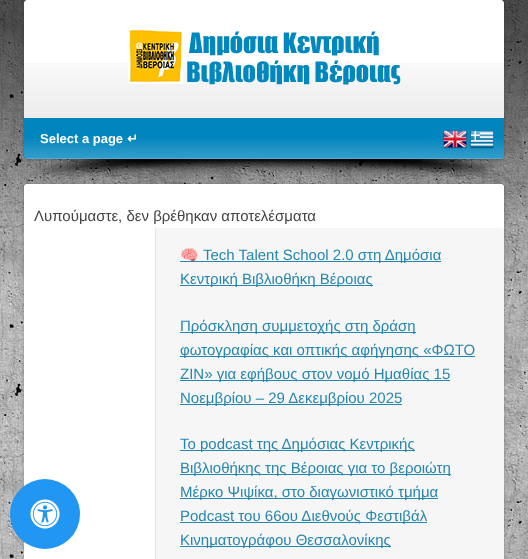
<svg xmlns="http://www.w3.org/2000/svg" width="528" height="559">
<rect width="100%" height="100%" fill="#fff"/>
<image x="0" y="0" width="528" height="559" href="media/1.png"/>
<image x="0" y="0" width="528" height="282" href="media/2.png"/>
<image x="31" y="159" width="468" height="20" href="media/8.png"/>
<rect x="24" y="1" width="480" height="159" rx="3" fill="#00000040" filter="blur(1.5px)"/>
<path d="M27 0h474c1.5 0 3 1.5 3 3v115h-480v-115c0-1.5 1.5-3 3-3z" fill="#fff"/>
<image x="24" y="62" width="480" height="56" href="media/3.png"/>
<image x="128" y="30" width="273" height="55" href="media/4.png"/>
<path d="M24 118h480v38c0 1.5-1.5 3-3 3h-474c-1.5 0-3-1.5-3-3z" fill="#0085be"/>
<image x="24" y="138" width="480" height="21" href="media/5.png"/>
<text x="40" y="143" style="font-family:Liberation Sans;font-size:13px;font-weight:bold;fill:#fff">Select a page</text>
<text x="127" y="143" style="font-family:DejaVu Sans;font-size:13px;font-weight:bold;fill:#fff">↵</text>
<image x="443" y="130" width="24" height="19" href="media/6.png"/>
<image x="470" y="130" width="24" height="19" href="media/7.png"/>
<rect x="24" y="185" width="480" height="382" rx="3" fill="#00000040" filter="blur(1.5px)"/>
<path d="M27 184h474c1.5 0 3 1.5 3 3v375h-480v-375c0-1.5 1.5-3 3-3z" fill="#fff"/>
<rect x="24" y="184" width="480" height="44" rx="4" fill="#fff"/>
<text x="34" y="221" style="font-family:Liberation Sans;font-size:15px;fill:#444">Λυπούμαστε, δεν βρέθηκαν αποτελέσματα</text>
<path d="M155 228h346c1.5 0 3 1.5 3 3v328c0 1.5-1.5 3-3 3h-346z" fill="#f6f6f6"/>
<rect x="155" y="228" width="1" height="331" fill="#e5e5e5"/>
<rect x="180" y="261" width="261" height="1" fill="#2687ad"/>
<text x="180" y="260" style="font-family:Noto Color Emoji;font-size:15px;fill:#2687ad">🧠</text>
<text x="203" y="260" style="font-family:Liberation Sans;font-size:15px;fill:#2687ad">Tech Talent School 2.0 στη Δημόσια</text>
<rect x="180" y="285" width="193" height="1" fill="#2687ad"/>
<text x="180" y="284" style="font-family:Liberation Sans;font-size:15px;fill:#2687ad">Κεντρική Βιβλιοθήκη Βέροιας</text>
<rect x="180" y="332" width="236" height="1" fill="#2687ad"/>
<text x="180" y="331" style="font-family:Liberation Sans;font-size:15px;fill:#2687ad">Πρόσκληση συμμετοχής στη δράση</text>
<rect x="180" y="356" width="295" height="1" fill="#2687ad"/>
<text x="180" y="355" style="font-family:Liberation Sans;font-size:15px;fill:#2687ad">φωτογραφίας και οπτικής αφήγησης «ΦΩΤΟ</text>
<rect x="180" y="380" width="270" height="1" fill="#2687ad"/>
<text x="180" y="379" style="font-family:Liberation Sans;font-size:15px;fill:#2687ad">ΖΙΝ» για εφήβους στον νομό Ημαθίας 15</text>
<rect x="180" y="404" width="222" height="1" fill="#2687ad"/>
<text x="180" y="403" style="font-family:Liberation Sans;font-size:15px;fill:#2687ad">Νοεμβρίου – 29 Δεκεμβρίου 2025</text>
<rect x="180" y="450" width="235" height="1" fill="#2687ad"/>
<text x="180" y="449" style="font-family:Liberation Sans;font-size:15px;fill:#2687ad">Το podcast της Δημόσιας Κεντρικής</text>
<rect x="180" y="474" width="271" height="1" fill="#2687ad"/>
<text x="180" y="473" style="font-family:Liberation Sans;font-size:15px;fill:#2687ad">Βιβλιοθήκης της Βέροιας για το βεροιώτη</text>
<rect x="180" y="498" width="258" height="1" fill="#2687ad"/>
<text x="180" y="497" style="font-family:Liberation Sans;font-size:15px;fill:#2687ad">Μέρκο Ψιψίκα, στο διαγωνιστικό τμήμα</text>
<rect x="180" y="522" width="247" height="1" fill="#2687ad"/>
<text x="180" y="521" style="font-family:Liberation Sans;font-size:15px;fill:#2687ad">Podcast του 66ου Διεθνούς Φεστιβάλ</text>
<rect x="180" y="546" width="211" height="1" fill="#2687ad"/>
<text x="180" y="545" style="font-family:Liberation Sans;font-size:15px;fill:#2687ad">Κινηματογράφου Θεσσαλονίκης</text>
<circle cx="45" cy="514" r="35" fill="#2196f3"/>
<image x="30" y="499" width="30" height="30" href="media/9.png"/>
</svg>
